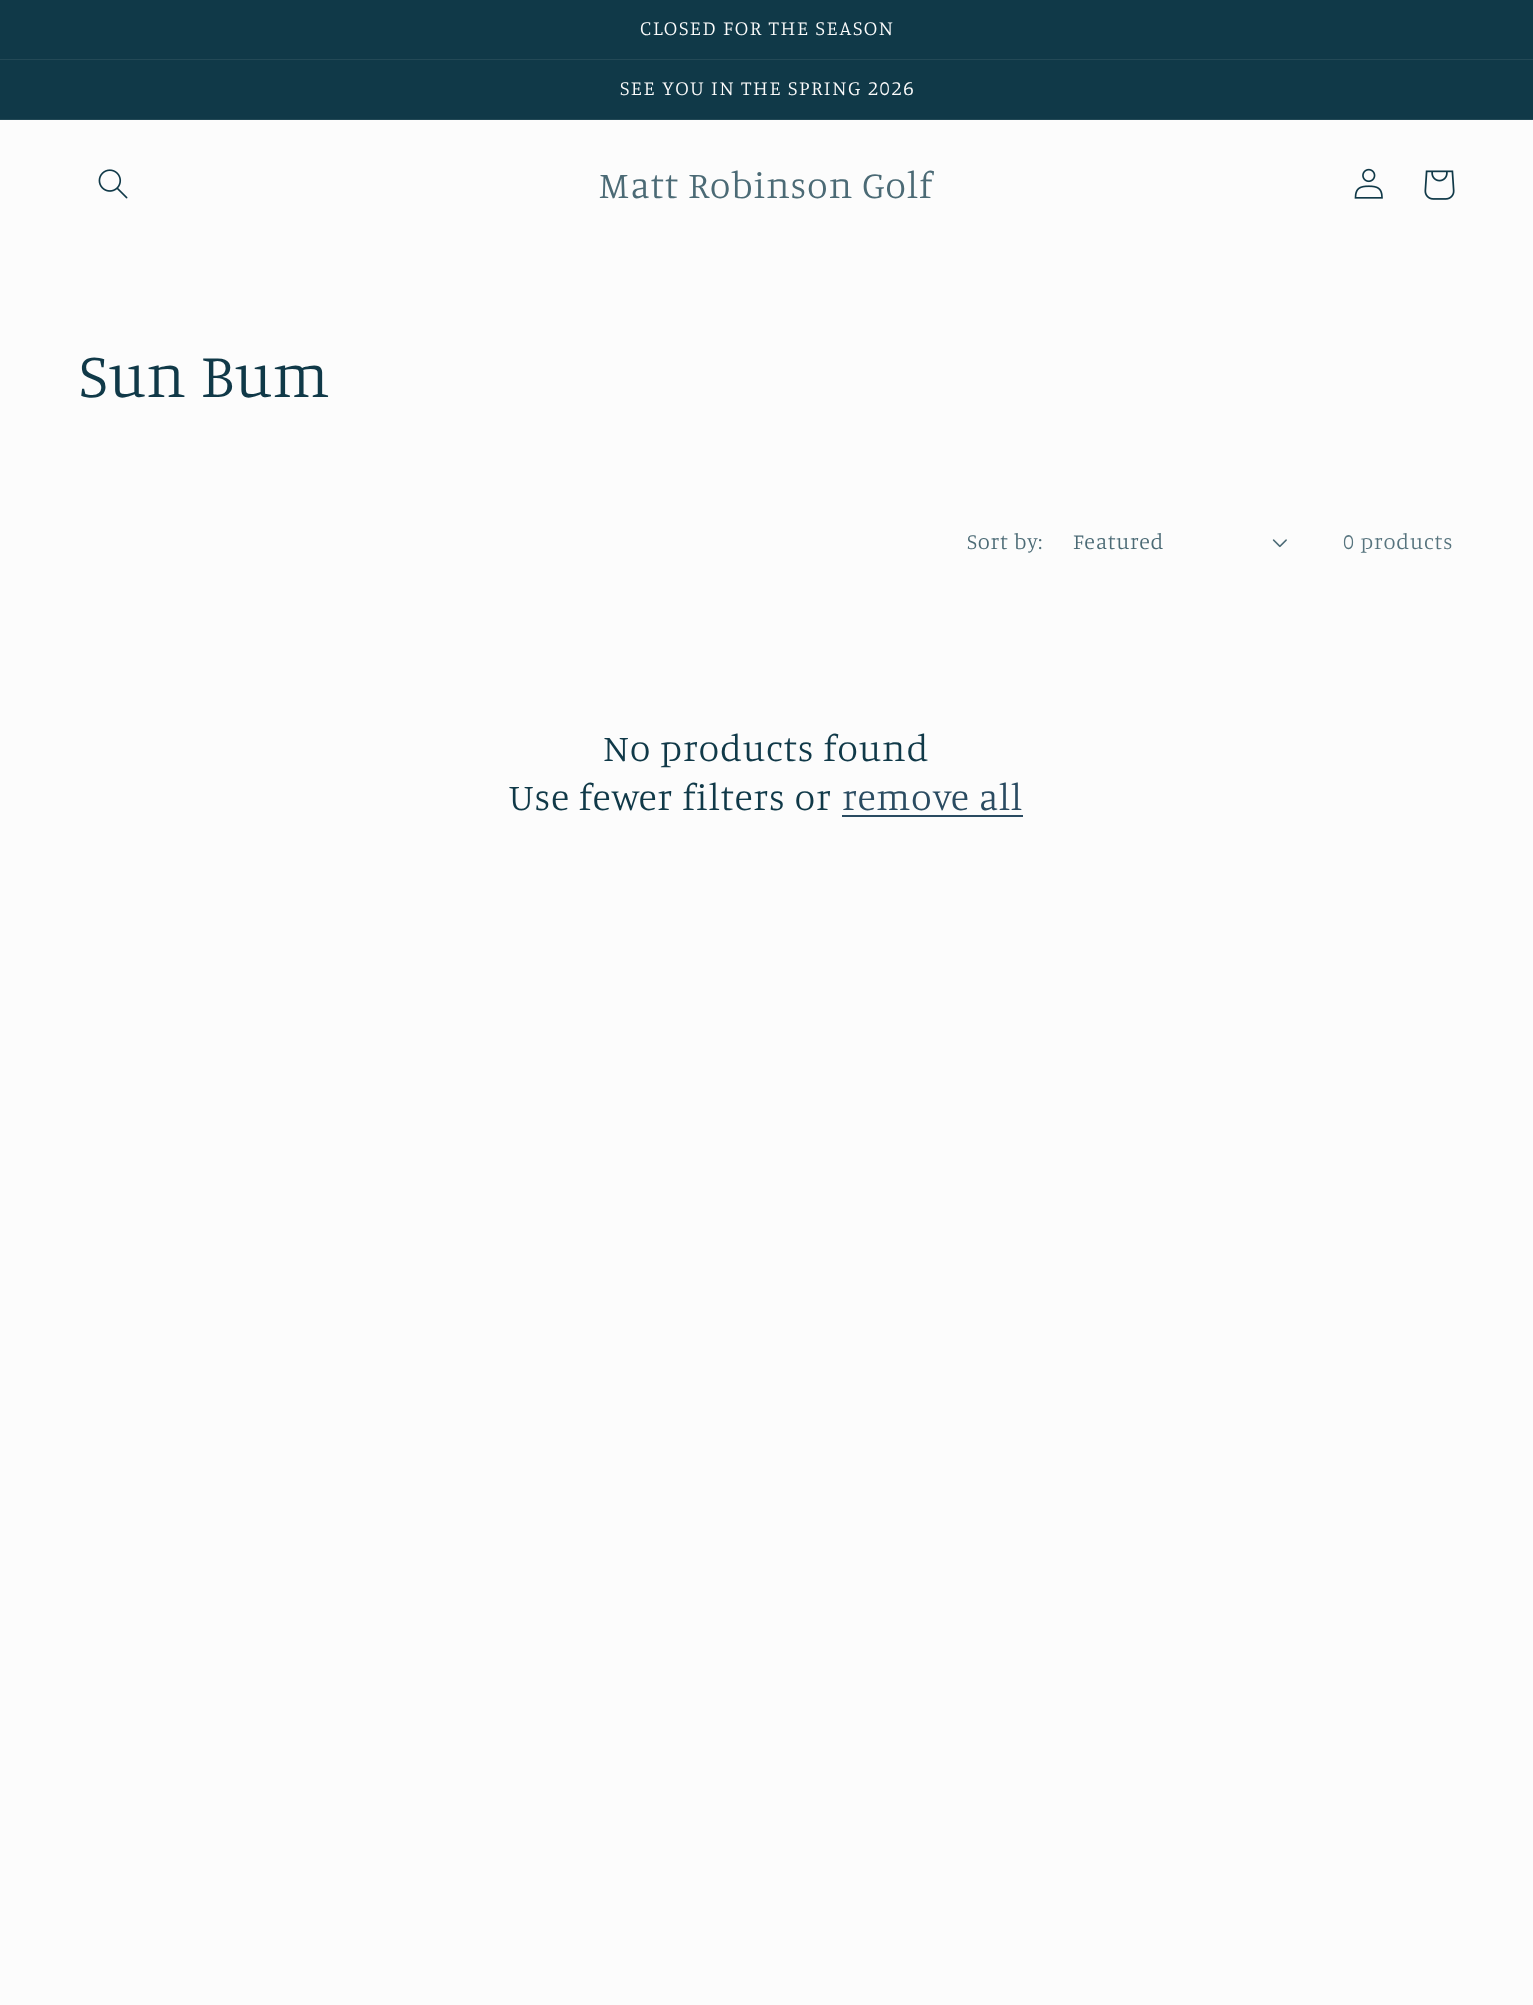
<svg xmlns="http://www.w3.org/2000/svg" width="1533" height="2005">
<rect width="100%" height="100%" fill="#fcfcfc"/>
<rect width="1533" height="59" fill="#103948"/>
<rect y="59" width="1533" height="1" fill="#234956"/>
<text x="640" y="35" style="font-family:Manuale;font-size:20.5px;font-weight:300;letter-spacing:1.6px;fill:#fcfcfc">CLOSED FOR THE SEASON</text>
<rect y="60" width="1533" height="59" fill="#103948"/>
<rect y="119" width="1533" height="1" fill="#234956"/>
<text x="620" y="95" style="font-family:Manuale;font-size:20.5px;font-weight:300;letter-spacing:1.6px;fill:#fcfcfc">SEE YOU IN THE SPRING 2026</text>
<image x="98" y="169" width="30" height="30" href="media/1.png"/>
<text x="599" y="198" style="font-family:Manuale;font-size:37.75px;font-weight:300;letter-spacing:0.9px;fill:#4b6a75">Matt Robinson Golf</text>
<image x="1354" y="168" width="29" height="31" href="media/2.png"/>
<image x="1424" y="170" width="31" height="30" href="media/3.png"/>
<text x="79" y="397" style="font-family:Manuale;font-size:63px;font-weight:300;letter-spacing:0.9px;fill:#103948">Sun Bum</text>
<text x="967" y="549" style="font-family:Manuale;font-size:22px;font-weight:300;letter-spacing:0.75px;fill:#4b6a75">Sort by:</text>
<text x="1073" y="549" style="font-family:Manuale;font-size:22px;font-weight:300;letter-spacing:0.75px;fill:#4b6a75">Featured</text>
<image x="1272" y="539" width="15" height="9" href="media/4.png"/>
<text x="1343" y="549" style="font-family:Manuale;font-size:22px;font-weight:300;letter-spacing:0.9px;fill:#57747e">0 products</text>
<text x="603" y="761" style="font-family:Manuale;font-size:37.75px;font-weight:300;letter-spacing:0.9px;fill:#103948">No products found</text>
<text x="509" y="810" style="font-family:Manuale;font-size:37.75px;font-weight:300;letter-spacing:0.9px;fill:#103948">Use fewer filters or</text>
<text x="842" y="810" style="font-family:Manuale;font-size:37.75px;font-weight:300;letter-spacing:0.9px;fill:#2a4b61">remove all</text>
<rect x="842" y="815" width="181" height="2" fill="#2a4b61"/>
</svg>
